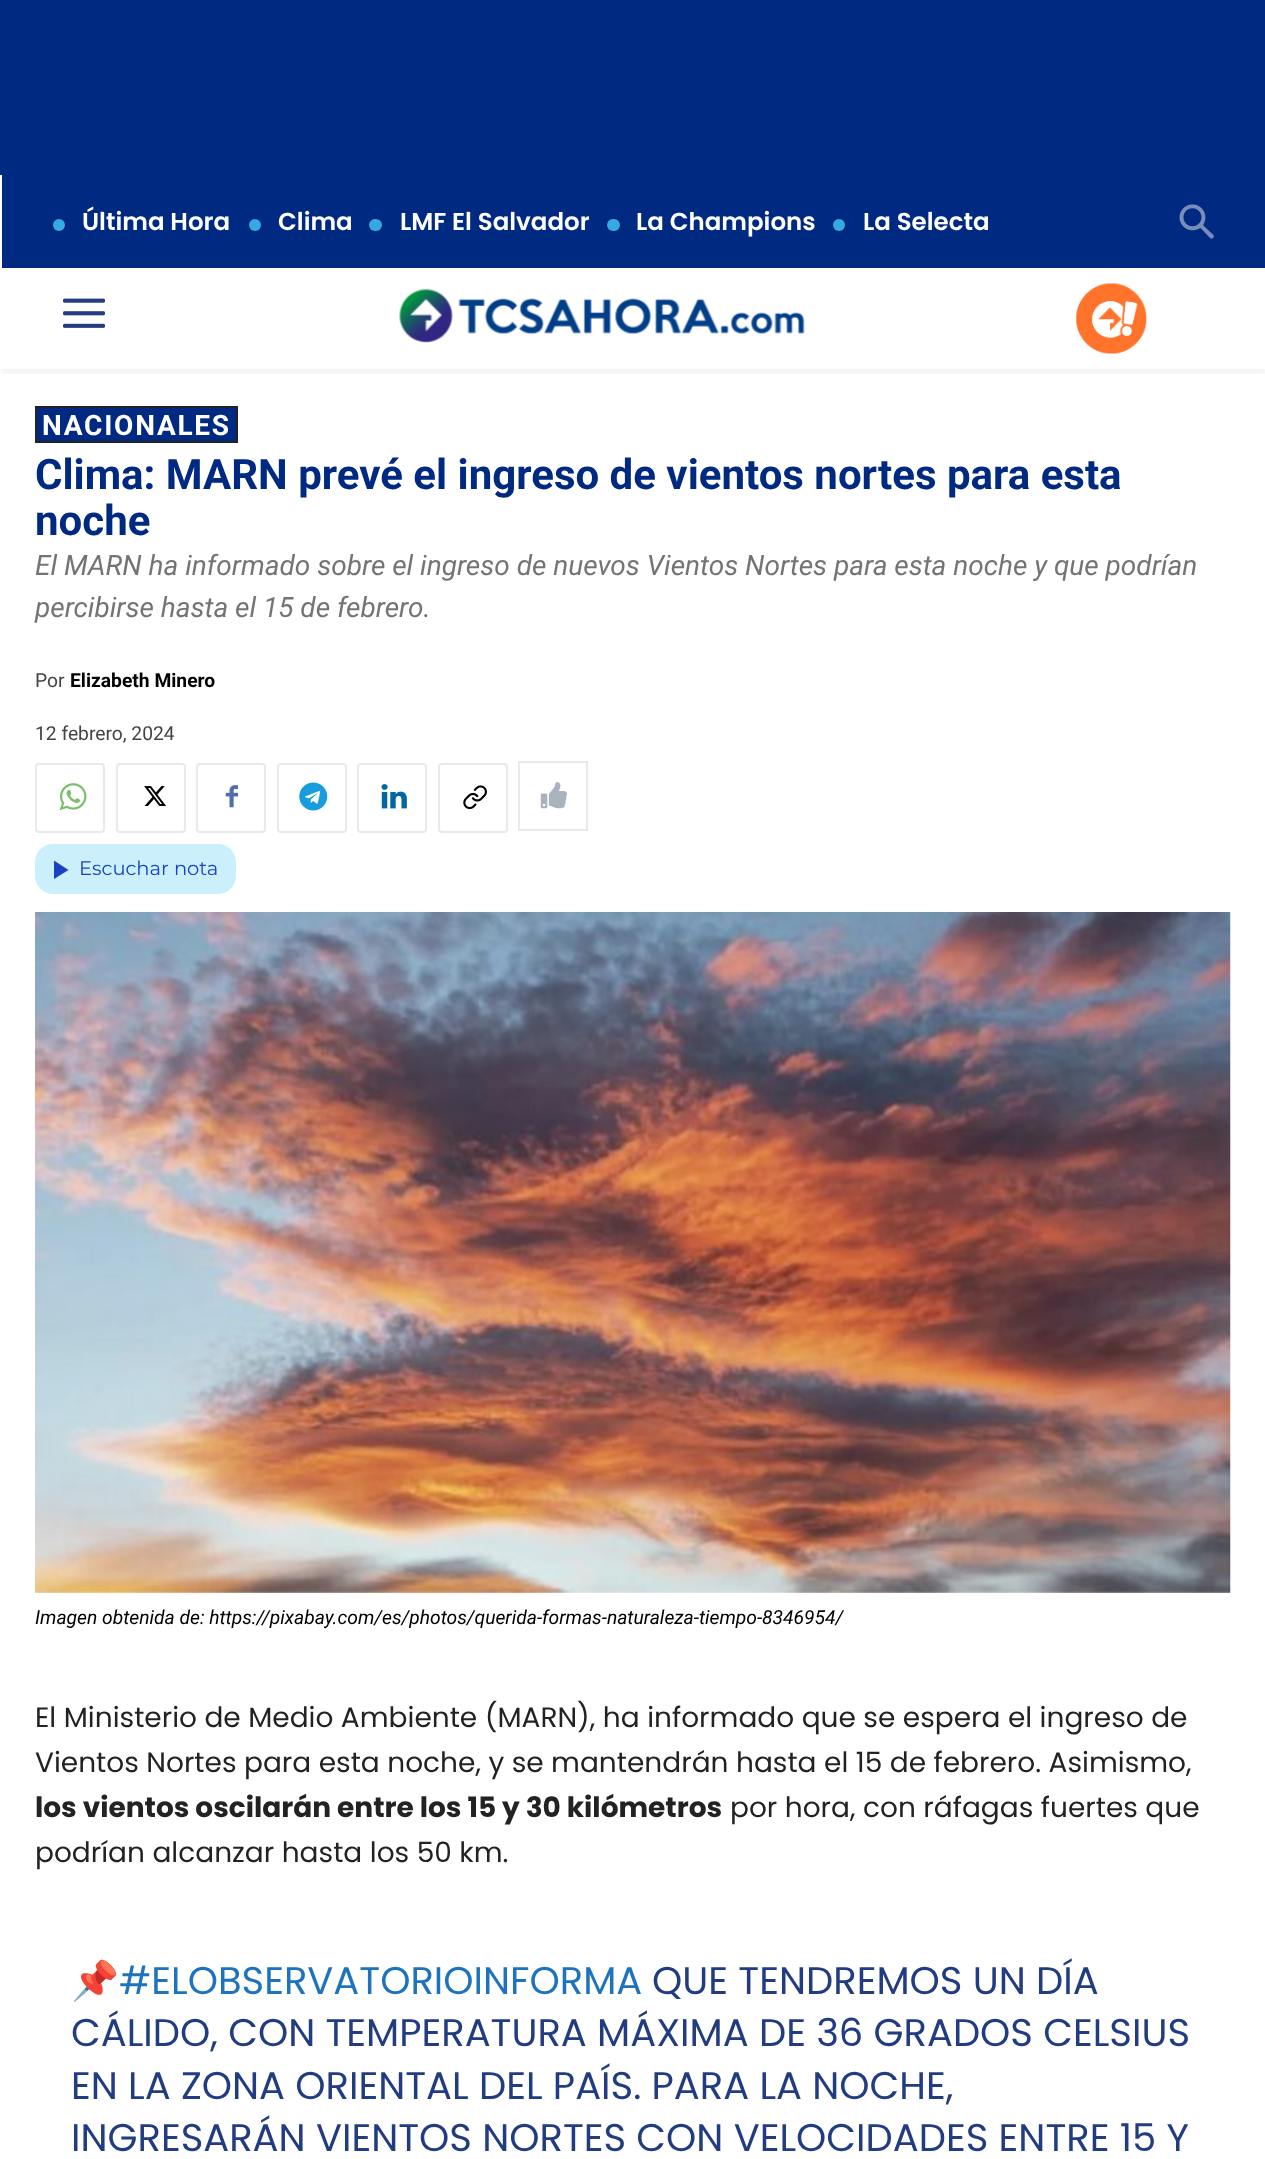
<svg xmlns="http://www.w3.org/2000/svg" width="1265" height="2159">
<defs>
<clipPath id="clip1"><rect x="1" y="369" width="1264" height="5"/></clipPath>
</defs>
<rect width="100%" height="100%" fill="#fff"/>
<rect x="2" y="175" width="1263" height="93" fill="#002982"/>
<image x="1179" y="204" width="35" height="35" href="media/1.png"/>
<image x="63" y="298" width="42" height="30" href="media/2.png"/>
<image x="399" y="288" width="406" height="55" href="media/3.png"/>
<image x="1076" y="283" width="71" height="71" href="media/4.png"/>
<g clip-path="url(#clip1)">
<rect x="2" y="4" width="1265" height="369" fill="#0000000f" filter="blur(3.5px)"/>
</g>
<rect width="1265" height="175" fill="#002982"/>
<circle cx="59" cy="225" r="6" fill="#36a9e1"/>
<text x="82" y="230" style="font-family:Poppins;font-size:24.5px;font-weight:600;fill:#fff">Última Hora</text>
<circle cx="255" cy="225" r="6" fill="#36a9e1"/>
<text x="278" y="230" style="font-family:Poppins;font-size:24.5px;font-weight:600;fill:#fff">Clima</text>
<rect x="369" y="219" width="13" height="12" rx="6" fill="#36a9e1"/>
<text x="400" y="230" style="font-family:Poppins;font-size:24.5px;font-weight:600;fill:#fff">LMF El Salvador</text>
<rect x="607" y="219" width="13" height="12" rx="6" fill="#36a9e1"/>
<text x="636" y="230" style="font-family:Poppins;font-size:24.5px;font-weight:600;fill:#fff">La Champions</text>
<circle cx="839" cy="225" r="6" fill="#36a9e1"/>
<text x="863" y="230" style="font-family:Poppins;font-size:24.5px;font-weight:600;fill:#fff">La Selecta</text>
<rect x="36" y="407" width="201" height="35" fill="#002982" stroke="#222" stroke-width="2"/>
<text x="42" y="435" style="font-family:Roboto;font-size:28px;font-weight:bold;letter-spacing:1.75px;fill:#fff">NACIONALES</text>
<text x="35" y="489" style="font-family:Roboto;font-size:42px;font-weight:bold;fill:#002982">Clima: MARN prevé el ingreso de vientos nortes para esta</text>
<text x="35" y="535" style="font-family:Roboto;font-size:42px;font-weight:bold;fill:#002982">noche</text>
<text x="35" y="575" style="font-family:Roboto;font-size:28px;font-style:italic;fill:#747474">El MARN ha informado sobre el ingreso de nuevos Vientos Nortes para esta noche y que podrían</text>
<text x="35" y="617" style="font-family:Roboto;font-size:28px;font-style:italic;fill:#747474">percibirse hasta el 15 de febrero.</text>
<text x="35" y="687" style="font-family:Roboto;font-size:19.25px;fill:#444">Por</text>
<text x="70" y="687" style="font-family:Roboto;font-size:19.25px;font-weight:bold;fill:#000">Elizabeth Minero</text>
<text x="35" y="740" style="font-family:Roboto;font-size:19.25px;fill:#444">12 febrero, 2024</text>
<rect x="36" y="764" width="68" height="68" rx="3" fill="none" stroke="#e9e9e9" stroke-width="2"/>
<image x="59" y="783" width="28" height="28" href="media/5.png"/>
<rect x="117" y="764" width="68" height="68" rx="3" fill="none" stroke="#e9e9e9" stroke-width="2"/>
<image x="144" y="786" width="22" height="20" href="media/6.png"/>
<rect x="197" y="764" width="68" height="68" rx="3" fill="none" stroke="#e9e9e9" stroke-width="2"/>
<image x="225" y="785" width="13" height="23" href="media/7.png"/>
<rect x="278" y="764" width="68" height="68" rx="3" fill="none" stroke="#e9e9e9" stroke-width="2"/>
<image x="299" y="782" width="29" height="29" href="media/8.png"/>
<rect x="358" y="764" width="68" height="68" rx="3" fill="none" stroke="#e9e9e9" stroke-width="2"/>
<image x="381" y="784" width="26" height="25" href="media/9.png"/>
<rect x="439" y="764" width="68" height="68" rx="3" fill="none" stroke="#e9e9e9" stroke-width="2"/>
<image x="463" y="785" width="24" height="25" href="media/10.png"/>
<rect x="519" y="762" width="68" height="68" fill="none" stroke="#e9e9e9" stroke-width="2"/>
<image x="540" y="782" width="27" height="27" href="media/11.png"/>
<rect x="35" y="844" width="201" height="50" rx="18" fill="#cceffc"/>
<path d="M54 860.5v18.5l14.5-9z" fill="#1a43bf"/>
<text x="79" y="875" style="font-family:Montserrat;font-size:19.5px;fill:#1a43bf">Escuchar nota</text>
<image x="35" y="912" width="1196" height="681" href="media/12.png"/>
<text x="35" y="1624" style="font-family:Roboto;font-size:19.25px;font-style:italic;fill:#000">Imagen obtenida de: https://pixabay.com/es/photos/querida-formas-naturaleza-tiempo-8346954/</text>
<text x="35" y="1727" style="font-family:Poppins;font-size:28px;fill:#222">El Ministerio de Medio Ambiente (MARN), ha informado que se espera el ingreso de</text>
<text x="35" y="1772" style="font-family:Poppins;font-size:28px;fill:#222">Vientos Nortes para esta noche, y se mantendrán hasta el 15 de febrero. Asimismo,</text>
<text x="35" y="1817" style="font-family:Poppins;font-size:28px;font-weight:bold;fill:#222">los vientos oscilarán entre los 15 y 30 kilómetros</text>
<text x="730" y="1817" style="font-family:Poppins;font-size:28px;fill:#222">por hora, con ráfagas fuertes que</text>
<text x="35" y="1862" style="font-family:Poppins;font-size:28px;fill:#222">podrían alcanzar hasta los 50 km.</text>
<text x="71" y="1994" style="font-family:Noto Color Emoji;font-size:38.5px;fill:#223c82">📌</text>
<text x="119" y="1994" style="font-family:Poppins;font-size:38.5px;fill:#1e73be">#ELOBSERVATORIOINFORMA</text>
<text x="652" y="1994" style="font-family:Poppins;font-size:38.5px;fill:#223c82">QUE TENDREMOS UN DÍA</text>
<text x="71" y="2046" style="font-family:Poppins;font-size:38.5px;fill:#223c82">CÁLIDO, CON TEMPERATURA MÁXIMA DE 36 GRADOS CELSIUS</text>
<text x="71" y="2099" style="font-family:Poppins;font-size:38.5px;fill:#223c82">EN LA ZONA ORIENTAL DEL PAÍS. PARA LA NOCHE,</text>
<text x="71" y="2151" style="font-family:Poppins;font-size:38.5px;fill:#223c82">INGRESARÁN VIENTOS NORTES CON VELOCIDADES ENTRE 15 Y</text>
</svg>
